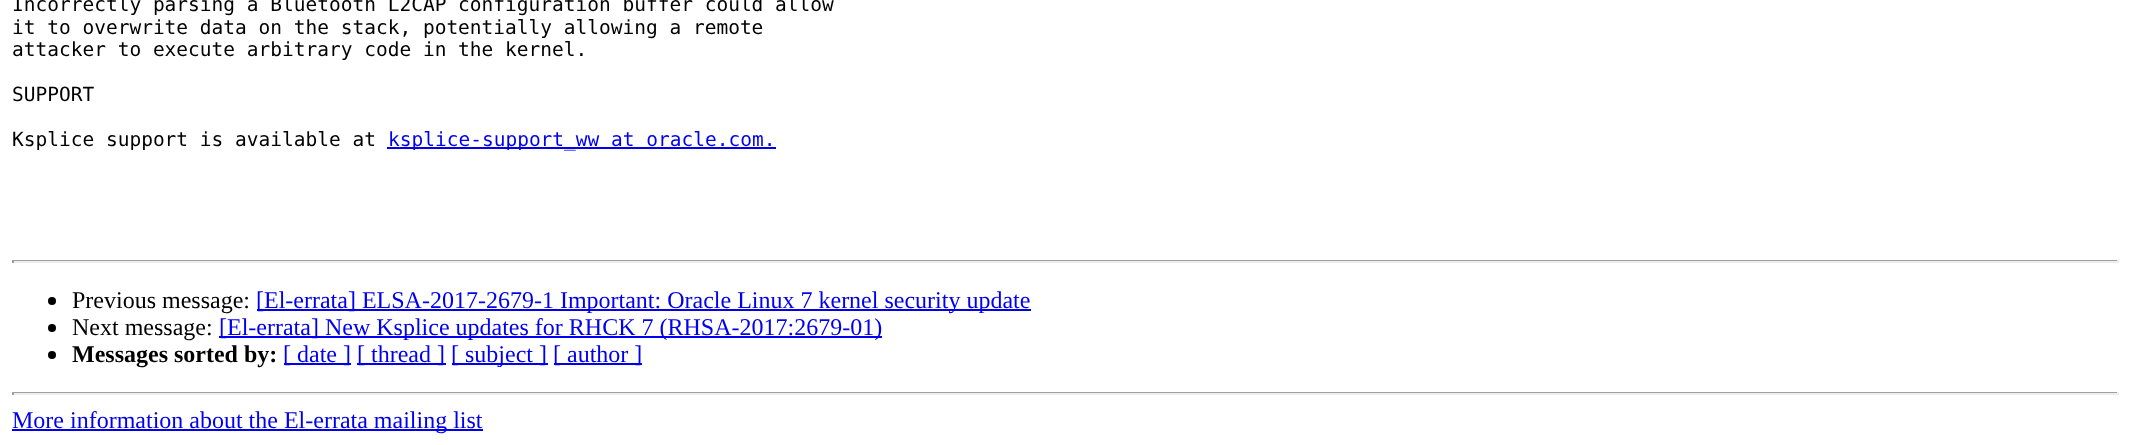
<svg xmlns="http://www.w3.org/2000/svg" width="2130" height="445">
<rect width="100%" height="100%" fill="#fff"/>
<text x="12" y="11" style="font-family:DejaVu Sans Mono;font-size:19.5px;fill:#000">Incorrectly parsing a Bluetooth L2CAP configuration buffer could allow</text>
<text x="12" y="34" style="font-family:DejaVu Sans Mono;font-size:19.5px;fill:#000">it to overwrite data on the stack, potentially allowing a remote</text>
<text x="12" y="56" style="font-family:DejaVu Sans Mono;font-size:19.5px;fill:#000">attacker to execute arbitrary code in the kernel.</text>
<text x="12" y="101" style="font-family:DejaVu Sans Mono;font-size:19.5px;fill:#000">SUPPORT</text>
<text x="12" y="146" style="font-family:DejaVu Sans Mono;font-size:19.5px;fill:#000">Ksplice support is available at</text>
<rect x="387" y="147" width="389" height="2" fill="#00e"/>
<text x="388" y="146" style="font-family:DejaVu Sans Mono;font-size:19.5px;fill:#00e">ksplice-support_ww at oracle.com.</text>
<rect x="12" y="260" width="2106" height="1" fill="#9f9f9f"/>
<rect x="2117" y="260" width="2" height="3" fill="#eee"/>
<rect x="12" y="261" width="2106" height="2" fill="#eee"/>
<rect x="12" y="260" width="2" height="3" fill="#9f9f9f"/>
<circle cx="52" cy="301" r="4" fill="#000"/>
<text x="72" y="308" style="font-family:Liberation Serif;font-size:24px;fill:#000">Previous message:</text>
<rect x="257" y="309" width="774" height="2" fill="#00e"/>
<text x="256" y="308" style="font-family:Liberation Serif;font-size:24px;fill:#00e">[El-errata] ELSA-2017-2679-1 Important: Oracle Linux 7 kernel security update</text>
<circle cx="52" cy="328" r="4" fill="#000"/>
<text x="72" y="335" style="font-family:Liberation Serif;font-size:24px;fill:#000">Next message:</text>
<rect x="219" y="336" width="663" height="2" fill="#00e"/>
<text x="219" y="335" style="font-family:Liberation Serif;font-size:24px;fill:#00e">[El-errata] New Ksplice updates for RHCK 7 (RHSA-2017:2679-01)</text>
<circle cx="52" cy="355" r="4" fill="#000"/>
<text x="72" y="362" style="font-family:Liberation Serif;font-size:24px;font-weight:bold;fill:#000">Messages sorted by:</text>
<rect x="284" y="363" width="67" height="2" fill="#00e"/>
<text x="283" y="362" style="font-family:Liberation Serif;font-size:24px;fill:#00e">[ date ]</text>
<rect x="357" y="363" width="89" height="2" fill="#00e"/>
<text x="357" y="362" style="font-family:Liberation Serif;font-size:24px;fill:#00e">[ thread ]</text>
<rect x="452" y="363" width="96" height="2" fill="#00e"/>
<text x="451" y="362" style="font-family:Liberation Serif;font-size:24px;fill:#00e">[ subject ]</text>
<rect x="554" y="363" width="88" height="2" fill="#00e"/>
<text x="553" y="362" style="font-family:Liberation Serif;font-size:24px;fill:#00e">[ author ]</text>
<rect x="12" y="392" width="2106" height="1" fill="#9f9f9f"/>
<rect x="2117" y="392" width="2" height="3" fill="#eee"/>
<rect x="12" y="393" width="2106" height="2" fill="#eee"/>
<rect x="12" y="392" width="2" height="3" fill="#9f9f9f"/>
<rect x="12" y="429" width="471" height="2" fill="#00e"/>
<text x="12" y="428" style="font-family:Liberation Serif;font-size:24px;fill:#00e">More information about the El-errata mailing list</text>
</svg>
